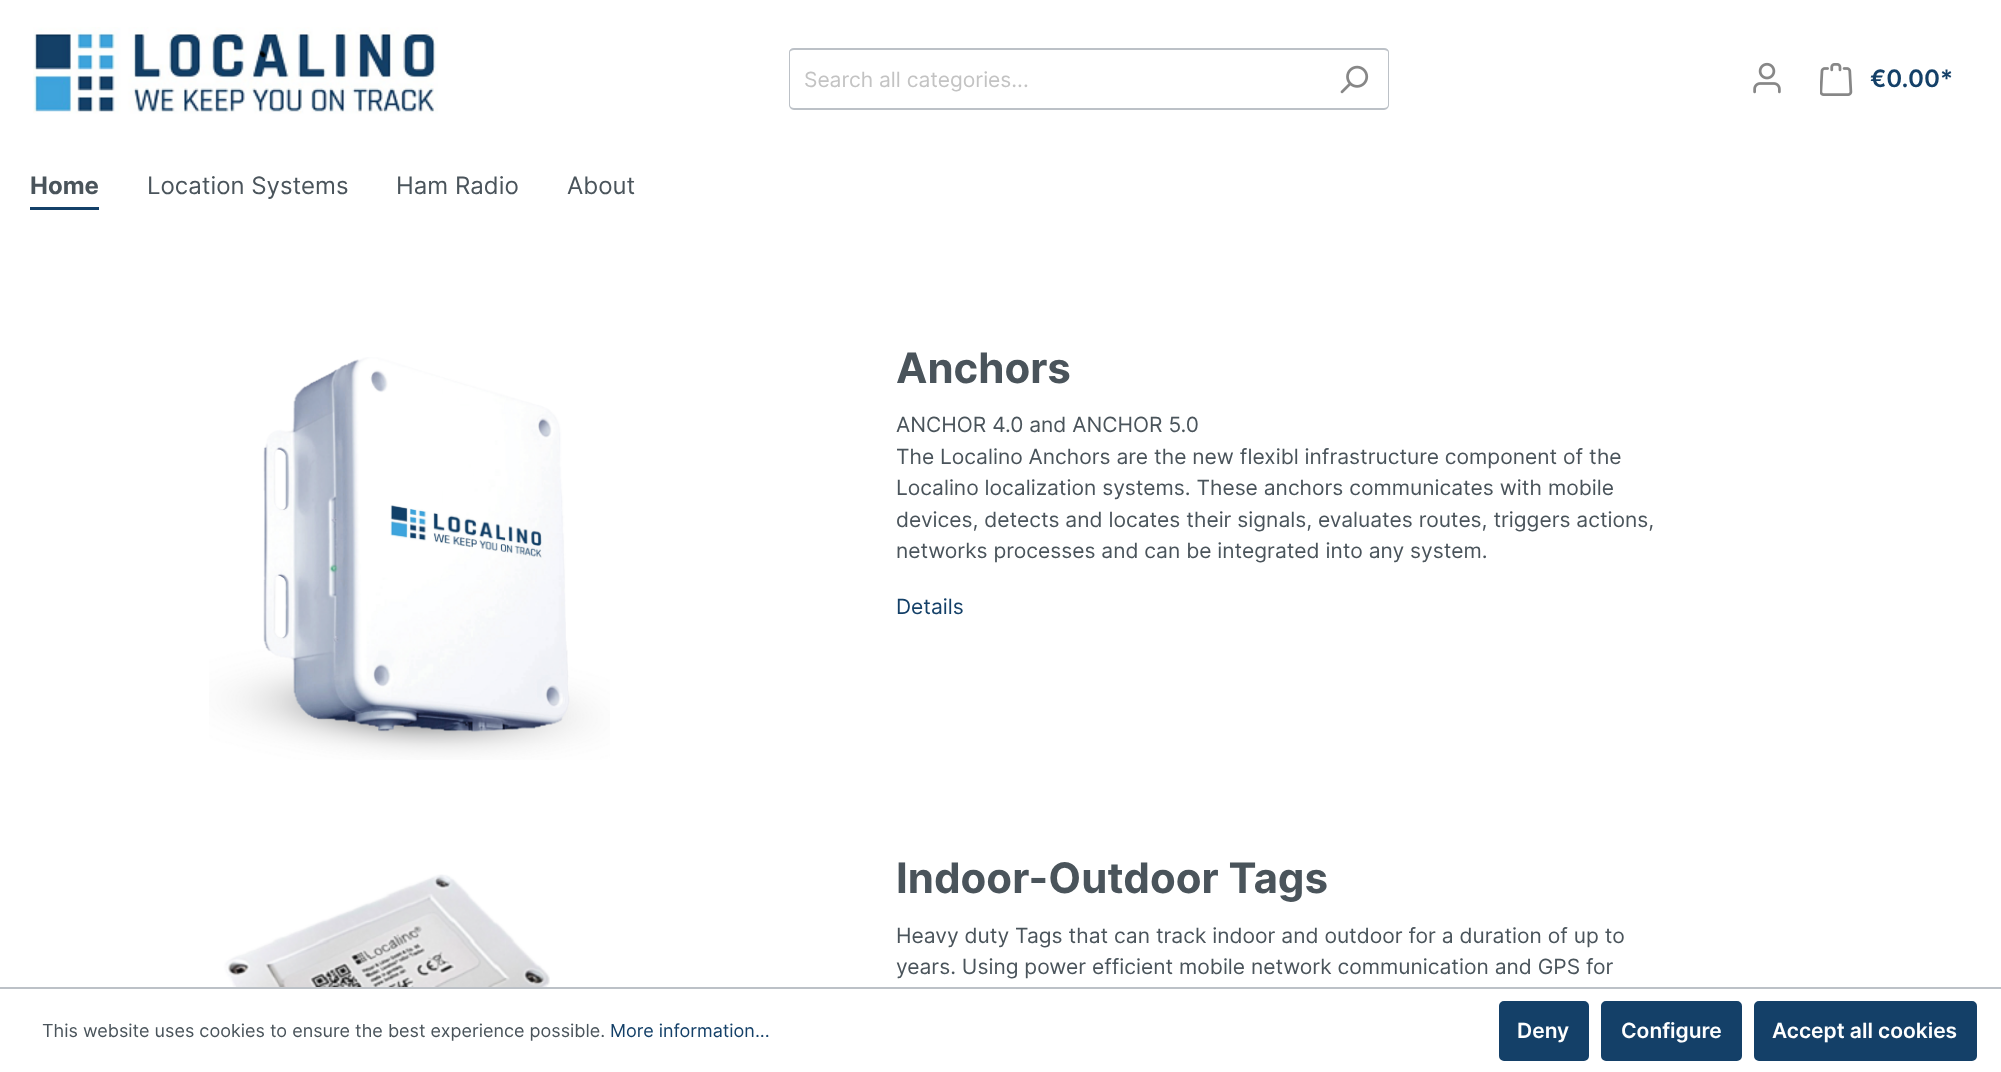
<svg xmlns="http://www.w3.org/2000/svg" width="2001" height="1072">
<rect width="100%" height="100%" fill="#fff"/>
<image x="33" y="27" width="405" height="87" href="media/1.png"/>
<path d="M794 48h526v62h-526c-3 0-5-3-5-5v-53c0-2 2-4 5-4zm0 2h526v58h-526c-2 0-4-1-4-3v-53c0-1 2-2 4-2z" fill="#bcc1c7" fill-rule="evenodd"/>
<text x="804" y="87" style="font-family:Inter;font-size:21px;fill:#c3c3c3">Search all categories...</text>
<path d="M1319 48h65c3 0 5 2 5 5v52c0 3-2 5-5 5h-65z" fill="#fff"/>
<path d="M1318 48h66c3 0 5 2 5 4v53c0 2-2 5-5 5h-66zm0 2h66c2 0 4 1 4 2v53c0 2-2 3-4 3h-66z" fill="#bcc1c7" fill-rule="evenodd"/>
<image x="1340" y="65" width="29" height="29" href="media/2.png"/>
<image x="1753" y="62" width="28" height="32" href="media/3.png"/>
<image x="1820" y="63" width="33" height="33" href="media/4.png"/>
<text x="1870" y="87" style="font-family:Inter;font-size:24px;font-weight:600;fill:#144068">€0.00*</text>
<rect x="30" y="207" width="69" height="3" fill="#144068"/>
<text x="30" y="194" style="font-family:Inter;font-size:24px;font-weight:bold;fill:#4a545b">Home</text>
<text x="147" y="194" style="font-family:Inter;font-size:24px;fill:#4a545b">Location Systems</text>
<text x="396" y="194" style="font-family:Inter;font-size:24px;fill:#4a545b">Ham Radio</text>
<text x="567" y="194" style="font-family:Inter;font-size:24px;fill:#4a545b">About</text>
<image x="209" y="357" width="401" height="403" href="media/5.png"/>
<text x="896" y="383" style="font-family:Inter;font-size:42px;font-weight:bold;fill:#4a545b">Anchors</text>
<text x="896" y="432" style="font-family:Inter;font-size:21px;fill:#4a545b">ANCHOR 4.0 and ANCHOR 5.0</text>
<text x="896" y="464" style="font-family:Inter;font-size:21px;fill:#4a545b">The Localino Anchors are the new flexibl infrastructure component of the</text>
<text x="896" y="495" style="font-family:Inter;font-size:21px;fill:#4a545b">Localino localization systems. These anchors communicates with mobile</text>
<text x="896" y="527" style="font-family:Inter;font-size:21px;fill:#4a545b">devices, detects and locates their signals, evaluates routes, triggers actions,</text>
<text x="896" y="558" style="font-family:Inter;font-size:21px;fill:#4a545b">networks processes and can be integrated into any system.</text>
<text x="896" y="614" style="font-family:Inter;font-size:21px;fill:#144068">Details</text>
<image x="222" y="874" width="328" height="113" href="media/6.png"/>
<text x="896" y="893" style="font-family:Inter;font-size:42px;font-weight:bold;fill:#4a545b">Indoor-Outdoor Tags</text>
<text x="896" y="943" style="font-family:Inter;font-size:21px;fill:#4a545b">Heavy duty Tags that can track indoor and outdoor for a duration of up to</text>
<text x="896" y="974" style="font-family:Inter;font-size:21px;fill:#4a545b">years. Using power efficient mobile network communication and GPS for</text>
<rect y="987" width="2001" height="2" fill="#bcc1c7"/>
<text x="42" y="1037" style="font-family:Inter;font-size:18px;fill:#4a545b">This website uses cookies to ensure the best experience possible.</text>
<text x="610" y="1037" style="font-family:Inter;font-size:18px;fill:#144068">More information...</text>
<rect x="1500" y="1002" width="88" height="58" rx="4" fill="#144068" stroke="#144068" stroke-width="2"/>
<text x="1517" y="1038" style="font-family:Inter;font-size:21px;font-weight:600;fill:#fff">Deny</text>
<rect x="1602" y="1002" width="139" height="58" rx="4" fill="#144068" stroke="#144068" stroke-width="2"/>
<text x="1621" y="1038" style="font-family:Inter;font-size:21px;font-weight:600;fill:#fff">Configure</text>
<rect x="1755" y="1002" width="221" height="58" rx="4" fill="#144068" stroke="#144068" stroke-width="2"/>
<text x="1772" y="1038" style="font-family:Inter;font-size:21px;font-weight:600;fill:#fff">Accept all cookies</text>
</svg>
